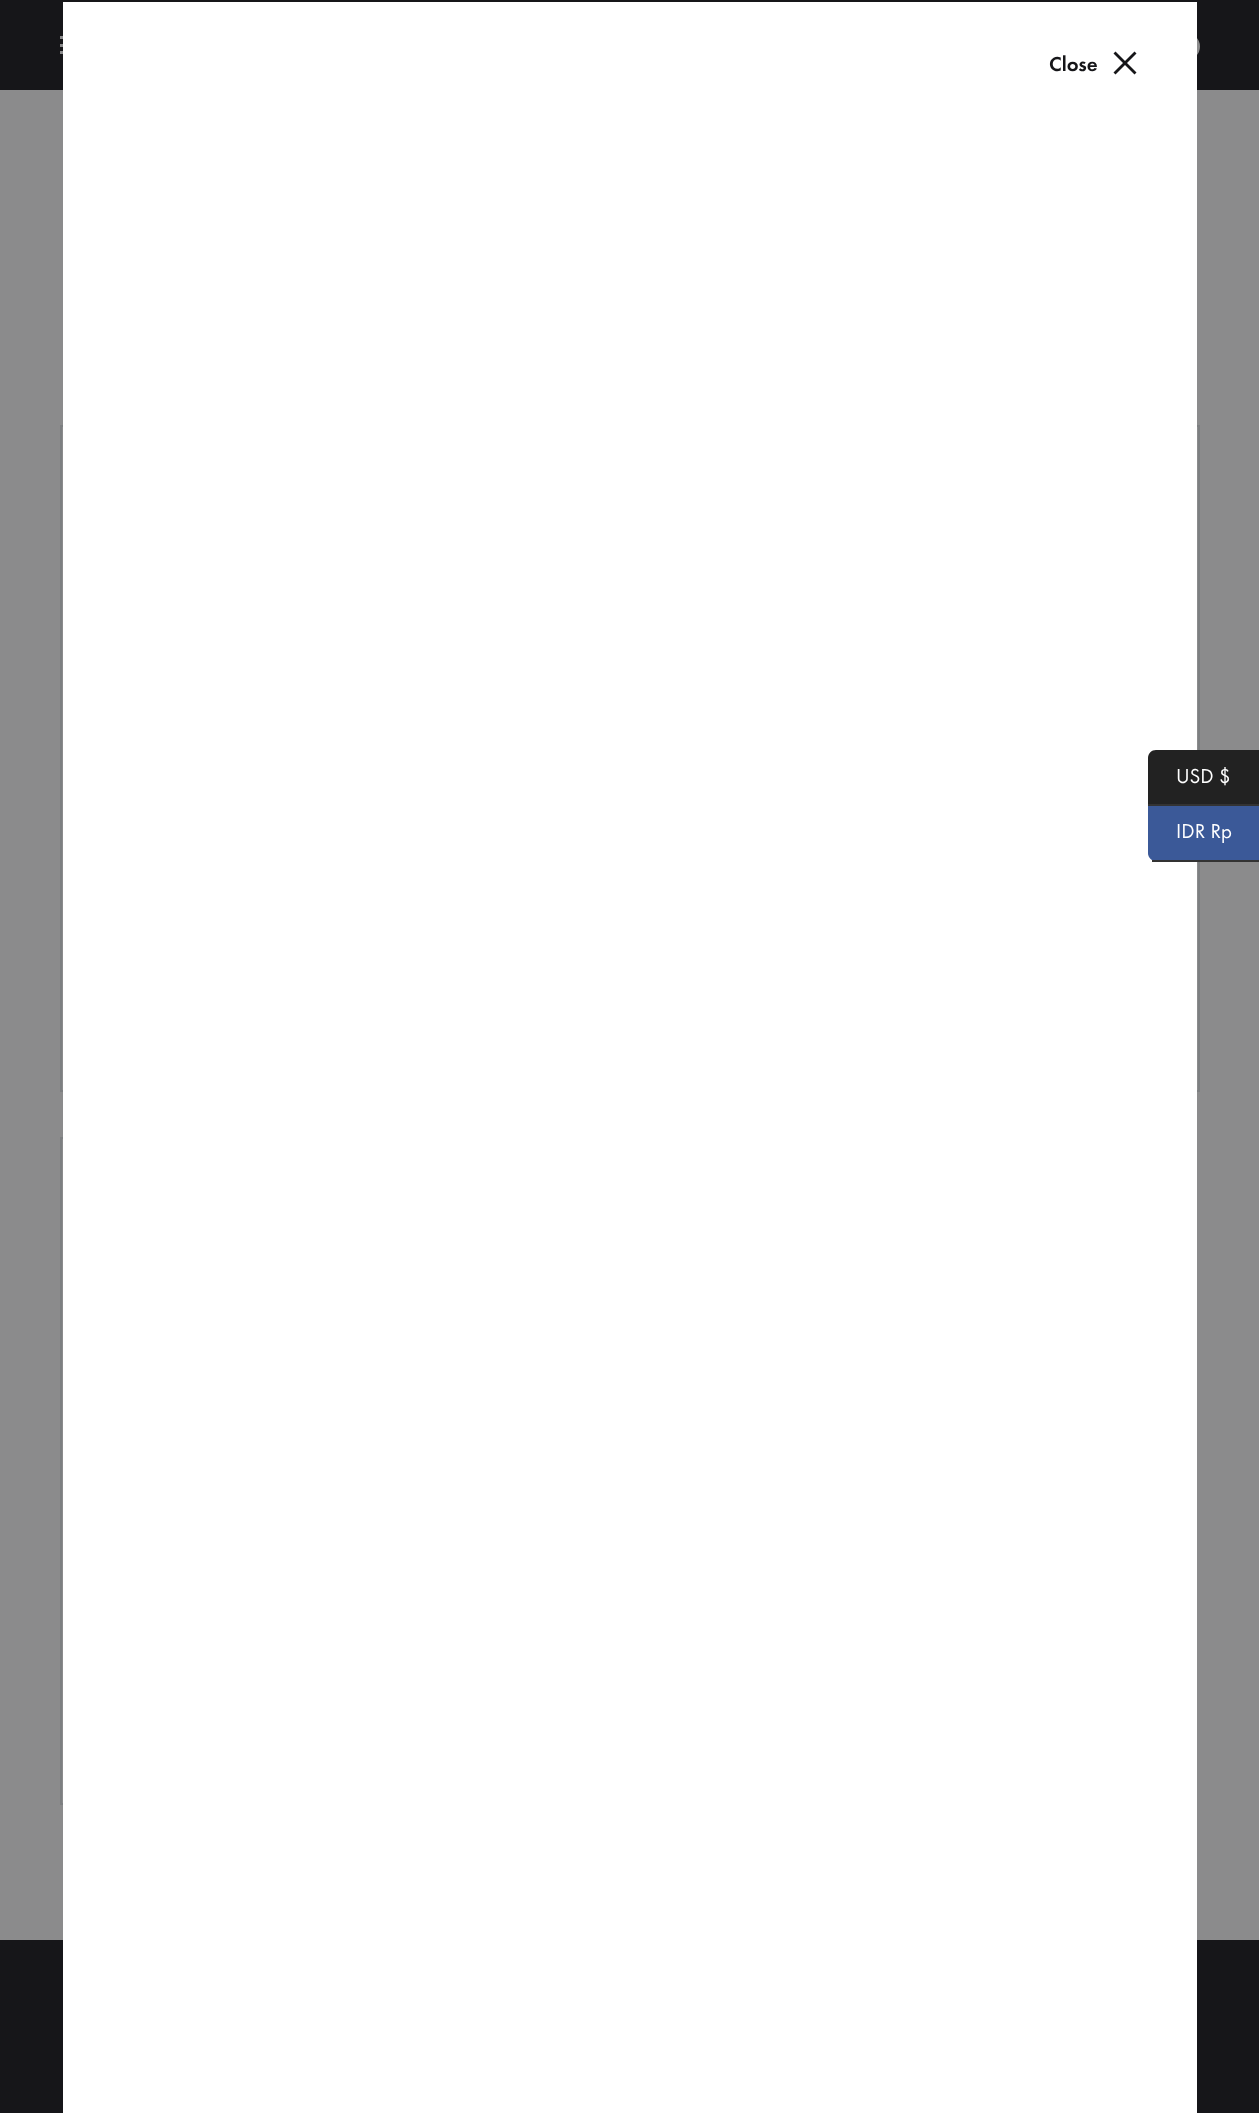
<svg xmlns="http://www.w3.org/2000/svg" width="1259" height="2113">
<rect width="100%" height="100%" fill="#8b8b8c"/>
<rect width="1259" height="90" fill="#161619"/>
<rect x="60" y="44" width="3" height="3" fill="#8b8b8c"/>
<rect x="60" y="36" width="3" height="3" fill="#8b8b8c"/>
<rect x="60" y="51" width="3" height="3" fill="#8b8b8c"/>
<circle cx="1186.5" cy="46.5" r="13.5" fill="#8b8b8c"/>
<rect x="61" y="426" width="546" height="665" fill="none" stroke="#7d7f81" stroke-width="2"/>
<rect x="654" y="426" width="545" height="665" fill="none" stroke="#7d7f81" stroke-width="2"/>
<rect x="61" y="1138" width="546" height="666" fill="none" stroke="#7d7f81" stroke-width="2"/>
<rect y="1940" width="1259" height="173" fill="#161619"/>
<rect x="63" y="2" width="1134" height="2111" fill="#fff"/>
<text x="1049" y="71" style="font-family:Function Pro;font-size:21px;font-weight:600;fill:#161619">Close</text>
<path d="M1115.5 51.5l21 21l-2 2l-21-21z" fill="#161619"/>
<path d="M1113.5 72.5l21-21l2 2l-21 21z" fill="#161619"/>
<path d="M1156 750h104v56h-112v-48c0-4.5 3.5-8 8-8z" fill="#222"/>
<rect x="1148" y="804" width="111" height="2" fill="#333"/>
<text x="1176" y="783" style="font-family:Function Pro;font-size:21px;fill:#fff">USD $</text>
<path d="M1148 806h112v55h-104c-4.5 0-8-3.5-8-8z" fill="#3b5998"/>
<rect x="1152" y="860" width="107" height="2" fill="#333"/>
<text x="1176" y="838" style="font-family:Function Pro;font-size:21px;fill:#fff">IDR Rp</text>
</svg>
